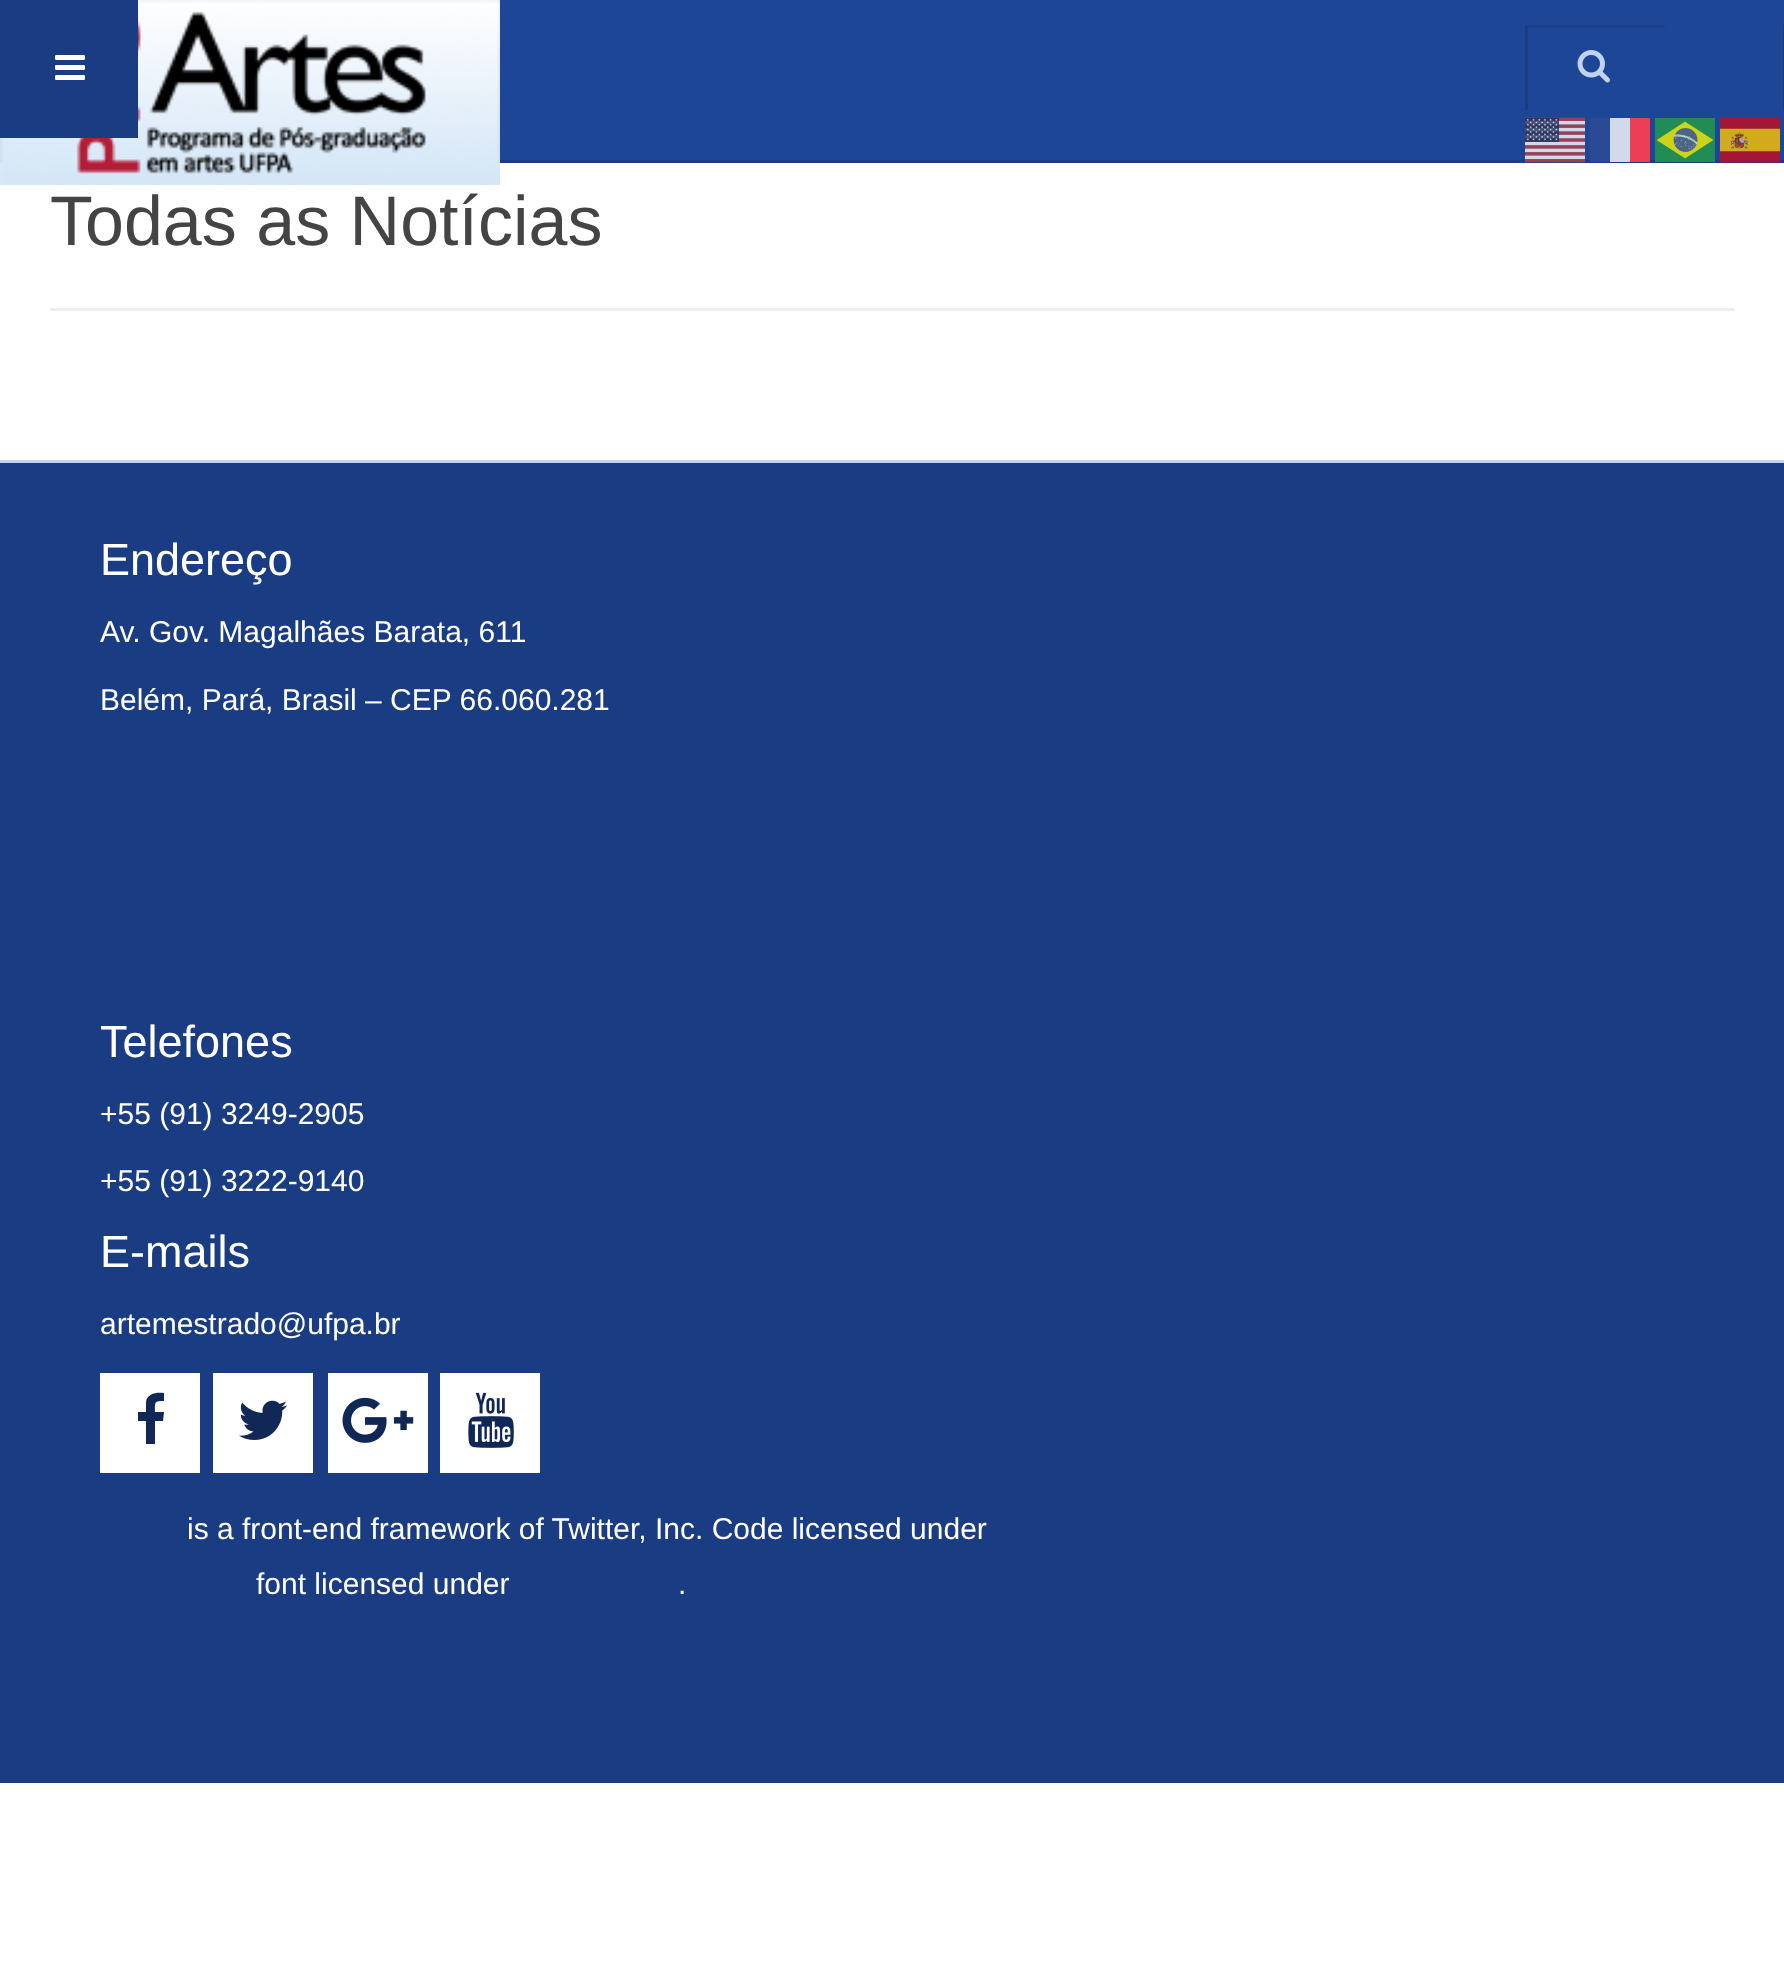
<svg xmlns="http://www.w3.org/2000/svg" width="1784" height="1974">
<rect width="100%" height="100%" fill="#fff"/>
<rect width="1784" height="160" fill="#1e4697"/>
<rect x="1610" y="118" width="20" height="42" fill="#d2daea"/>
<rect x="1630" y="118" width="20" height="42" fill="#ec3f55"/>
<rect x="1590" y="118" width="20" height="42" fill="#2a4a94"/>
<rect y="160" width="1784" height="3" fill="#1a3c82"/>
<rect x="1610" y="160" width="20" height="2" fill="#d1d8e6"/>
<rect x="1630" y="160" width="20" height="2" fill="#ec3e54"/>
<rect x="1590" y="160" width="20" height="2" fill="#2a4a94"/>
<image x="0" y="0" width="500" height="185" href="media/1.png"/>
<rect x="1783" y="25" width="1" height="85" fill="#1a3c82"/>
<rect x="1525" y="25" width="3" height="85" fill="#1a3c82"/>
<rect x="1528" y="25" width="137" height="3" fill="#1c418c"/>
<image x="1577" y="50" width="33" height="33" href="media/2.png"/>
<image x="1525" y="117" width="60" height="46" href="media/3.png"/>
<image x="1655" y="118" width="60" height="44" href="media/4.png"/>
<image x="1720" y="117" width="60" height="46" href="media/5.png"/>
<rect width="138" height="138" fill="#1a3c82"/>
<image x="55" y="55" width="30" height="25" href="media/6.png"/>
<rect x="50" y="308" width="1685" height="3" fill="#eee"/>
<text x="50" y="245" style="font-family:Liberation Sans;font-size:70px;fill:#444">Todas as Notícias</text>
<rect y="463" width="1784" height="1320" fill="#1a3c82"/>
<rect y="460" width="1784" height="3" fill="#c1d2f3"/>
<text x="100" y="575" style="font-family:Liberation Sans;font-size:45px;fill:#fff">Endereço</text>
<text x="100" y="642" style="font-family:Liberation Sans;font-size:30px;fill:#fff">Av. Gov. Magalhães Barata, 611</text>
<text x="100" y="710" style="font-family:Liberation Sans;font-size:30px;fill:#fff">Belém, Pará, Brasil – CEP 66.060.281</text>
<text x="100" y="1057" style="font-family:Liberation Sans;font-size:45px;fill:#fff">Telefones</text>
<text x="100" y="1124" style="font-family:Liberation Sans;font-size:30px;fill:#fff">+55 (91) 3249-2905</text>
<text x="100" y="1191" style="font-family:Liberation Sans;font-size:30px;fill:#fff">+55 (91) 3222-9140</text>
<text x="100" y="1267" style="font-family:Liberation Sans;font-size:45px;fill:#fff">E-mails</text>
<text x="100" y="1334" style="font-family:Liberation Sans;font-size:30px;fill:#fff">artemestrado@ufpa.br</text>
<rect x="100" y="1373" width="100" height="100" fill="#fff"/>
<path d="M164 1393v8c-10 0-9 1-9 11h9l-1 9h-8v23h-9v-23h-8v-9h8v-10c1-9 11-10 18-9z" fill="#112857"/>
<rect x="213" y="1373" width="100" height="100" fill="#fff"/>
<image x="239" y="1400" width="49" height="40" href="media/7.png"/>
<rect x="328" y="1373" width="100" height="100" fill="#fff"/>
<image x="342" y="1397" width="72" height="46" href="media/8.png"/>
<rect x="440" y="1373" width="100" height="100" fill="#fff"/>
<image x="468" y="1392" width="46" height="56" href="media/9.png"/>
<text x="187" y="1539" style="font-family:Liberation Sans;font-size:30px;fill:#fff">is a front-end framework of Twitter, Inc. Code licensed under</text>
<text x="256" y="1594" style="font-family:Liberation Sans;font-size:30px;fill:#fff">font licensed under</text>
<text x="678" y="1594" style="font-family:Liberation Sans;font-size:30px;fill:#fff">.</text>
</svg>
